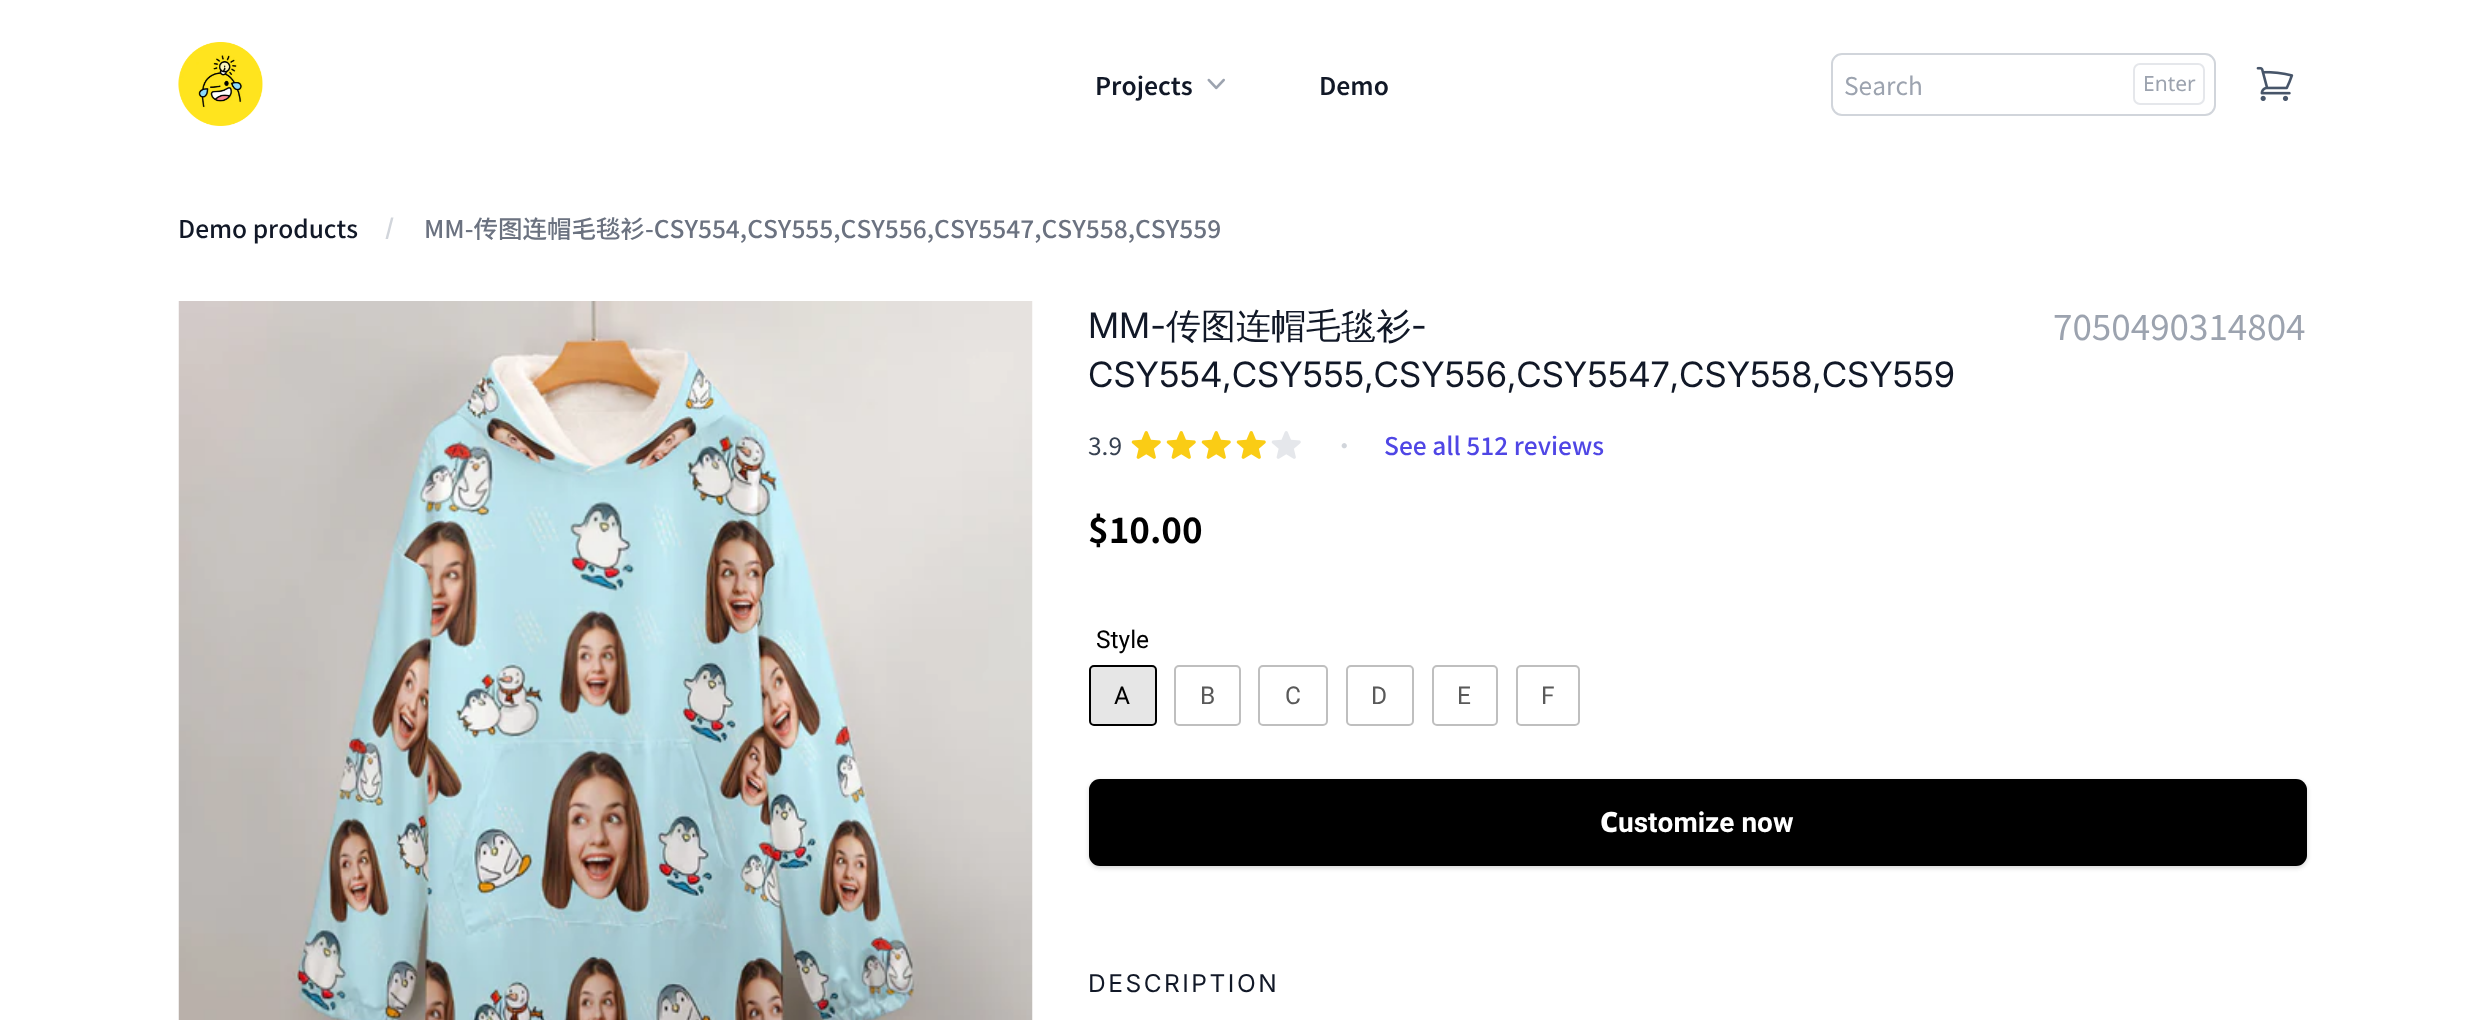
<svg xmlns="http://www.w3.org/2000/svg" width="2483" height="1020">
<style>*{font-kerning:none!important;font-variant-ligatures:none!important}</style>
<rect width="100%" height="100%" fill="#fff"/>
<image x="178" y="42" width="85" height="84" href="media/1.png"/>
<text x="1095" y="95" style="font-family:Noto Sans SC;font-size:24.5px;font-weight:600;fill:#111827">Projects</text>
<image x="1207" y="78" width="18" height="12" href="media/2.png"/>
<text x="1319" y="95" style="font-family:Noto Sans SC;font-size:24.5px;font-weight:600;fill:#111827">Demo</text>
<rect x="1832" y="54" width="383" height="61" rx="10" fill="none" stroke="#d1d5db" stroke-width="2"/>
<text x="1844" y="95" style="font-family:Noto Sans SC;font-size:24.5px;fill:#9ca3af">Search</text>
<rect x="2134" y="64" width="70" height="40" rx="6" fill="none" stroke="#e5e7eb" stroke-width="2"/>
<text x="2143" y="91" style="font-family:Noto Sans;font-size:21px;fill:#9ca3af">Enter</text>
<image x="2256" y="66" width="38" height="35" href="media/3.png"/>
<text x="178" y="238" style="font-family:Noto Sans SC;font-size:24.5px;font-weight:500;fill:#111827">Demo products</text>
<path d="M393.5 217.5h-2.5l-5.5 21.5h2.5z" fill="#d1d5db"/>
<text x="424" y="238" style="font-family:Noto Sans SC;font-size:24.5px;font-weight:500;fill:#6b7280">MM-传图连帽毛毯衫-CSY554,CSY555,CSY556,CSY5547,CSY558,CSY559</text>
<image x="178" y="301" width="855" height="719" href="media/4.png"/>
<text x="1088" y="338" style="font-family:Inter;font-size:35px;fill:#111827">MM-</text>
<text x="1166" y="338" style="font-family:WenQuanYi Zen Hei;font-size:35px;font-weight:500;fill:#111827">传图连帽毛毯衫</text>
<text x="1411" y="338" style="font-family:Inter;font-size:35px;fill:#111827">-</text>
<text x="1088" y="387" style="font-family:Inter;font-size:35px;fill:#111827">CSY554,CSY555,CSY556,CSY5547,CSY558,CSY559</text>
<text x="2053" y="340" style="font-family:Noto Sans SC;font-size:35px;fill:#9ca3af">7050490314804</text>
<text x="1088" y="455" style="font-family:Noto Sans SC;font-size:24.5px;fill:#374151">3.9</text>
<image x="1131" y="431" width="30" height="28" href="media/5.png"/>
<image x="1166" y="431" width="30" height="28" href="media/5.png"/>
<image x="1201" y="431" width="30" height="28" href="media/5.png"/>
<image x="1236" y="431" width="30" height="28" href="media/5.png"/>
<image x="1271" y="431" width="30" height="28" href="media/6.png"/>
<text x="1332" y="455" style="font-family:Noto Sans SC;font-size:24.5px;fill:#d1d5db">·</text>
<text x="1384" y="455" style="font-family:Noto Sans SC;font-size:24.5px;font-weight:500;fill:#4f46e5">See all 512 reviews</text>
<text x="1088" y="543" style="font-family:Noto Sans SC;font-size:35px;font-weight:bold;fill:#000">$10.00</text>
<text x="1096" y="648" style="font-family:Roboto;font-size:24.5px;fill:#000">Style</text>
<rect x="1090" y="666" width="66" height="59" rx="4" fill="#e6e6e6" stroke="#000" stroke-width="2"/>
<text x="1114" y="704" style="font-family:Roboto;font-size:24.5px;fill:#000">A</text>
<rect x="1175" y="666" width="65" height="59" rx="4" fill="none" stroke="#bfbfbf" stroke-width="2"/>
<text x="1200" y="704" style="font-family:Roboto;font-size:24.5px;fill:#595959">B</text>
<rect x="1259" y="666" width="68" height="59" rx="4" fill="none" stroke="#bfbfbf" stroke-width="2"/>
<text x="1285" y="704" style="font-family:Roboto;font-size:24.5px;fill:#595959">C</text>
<rect x="1347" y="666" width="66" height="59" rx="4" fill="none" stroke="#bfbfbf" stroke-width="2"/>
<text x="1371" y="704" style="font-family:Roboto;font-size:24.5px;fill:#595959">D</text>
<rect x="1433" y="666" width="64" height="59" rx="4" fill="none" stroke="#bfbfbf" stroke-width="2"/>
<text x="1457" y="704" style="font-family:Roboto;font-size:24.5px;fill:#595959">E</text>
<rect x="1517" y="666" width="62" height="59" rx="4" fill="none" stroke="#bfbfbf" stroke-width="2"/>
<text x="1541" y="704" style="font-family:Roboto;font-size:24.5px;fill:#595959">F</text>
<rect x="1089" y="781" width="1218" height="87" rx="11" fill="#0000000f" filter="blur(2px)"/>
<rect x="1089" y="781" width="1218" height="87" rx="11" fill="#0000001a" filter="blur(2.5px)"/>
<rect x="1089" y="779" width="1218" height="87" rx="11" fill="#000"/>
<rect x="1090" y="780" width="1216" height="85" rx="10" fill="none" stroke="#0000001f" stroke-width="2"/>
<text x="1600" y="832" style="font-family:Noto Sans;font-size:28px;font-weight:900;fill:#fff">C</text>
<text x="1618" y="832" style="font-family:Roboto;font-size:28px;font-weight:bold;fill:#fff">ustomize now</text>
<text x="1088" y="992" style="font-family:'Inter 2';font-size:24.5px;letter-spacing:2.5px;fill:#111827">DESCRIPTION</text>
</svg>
